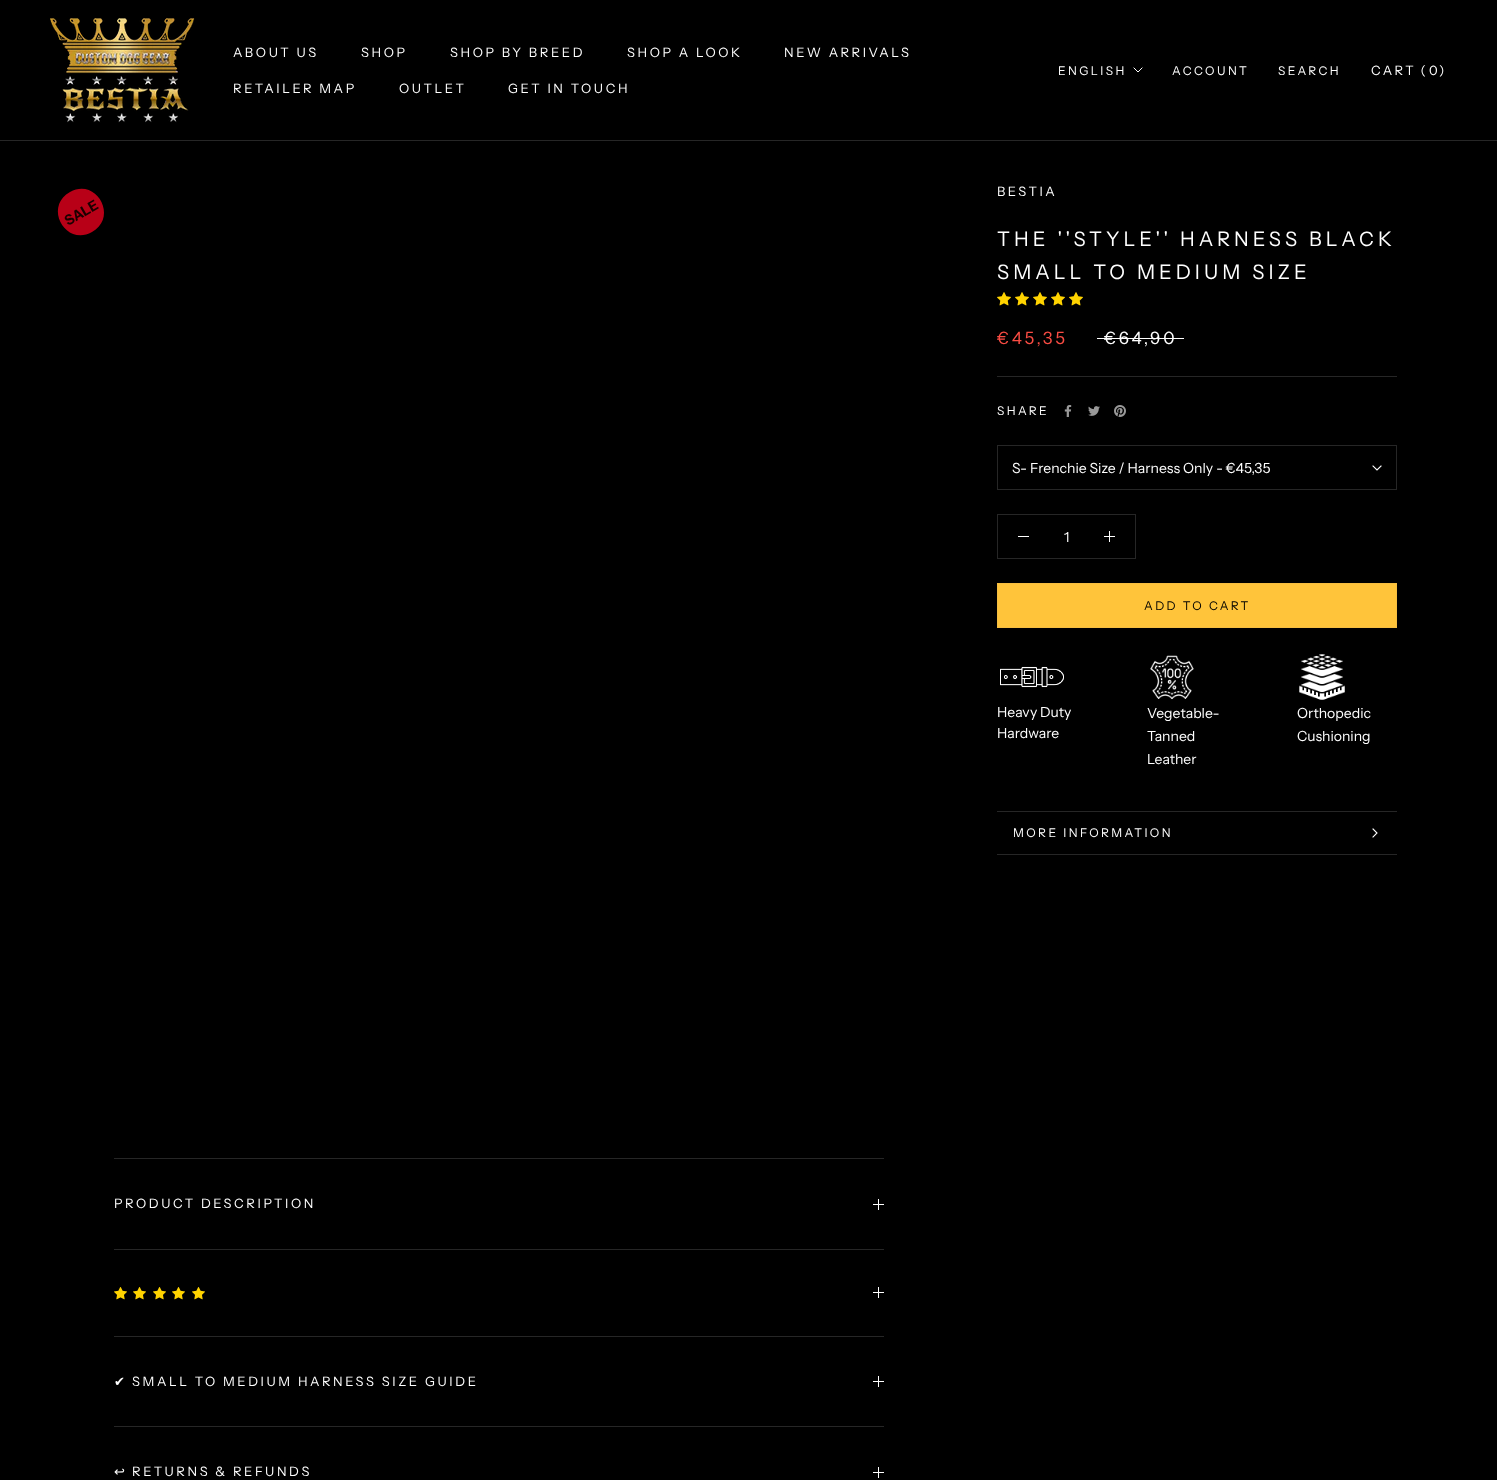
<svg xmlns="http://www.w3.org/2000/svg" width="1497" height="1480">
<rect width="100%" height="100%" fill="#000"/>
<rect y="140" width="1497" height="1" fill="#262626"/>
<image x="50" y="18" width="145" height="105" href="media/1.png"/>
<text x="233" y="57" style="font-family:Instrument Sans;font-size:13px;letter-spacing:2.6px;fill:#fff">ABOUT US</text>
<text x="361" y="57" style="font-family:Instrument Sans;font-size:13px;letter-spacing:2.6px;fill:#fff">SHOP</text>
<text x="450" y="57" style="font-family:Instrument Sans;font-size:13px;letter-spacing:2.6px;fill:#fff">SHOP BY BREED</text>
<text x="627" y="57" style="font-family:Instrument Sans;font-size:13px;letter-spacing:2.6px;fill:#fff">SHOP A LOOK</text>
<text x="784" y="57" style="font-family:Instrument Sans;font-size:13px;letter-spacing:2.6px;fill:#fff">NEW ARRIVALS</text>
<text x="233" y="93" style="font-family:Instrument Sans;font-size:13px;letter-spacing:2.6px;fill:#fff">RETAILER MAP</text>
<text x="399" y="93" style="font-family:Instrument Sans;font-size:13px;letter-spacing:2.6px;fill:#fff">OUTLET</text>
<text x="508" y="93" style="font-family:Instrument Sans;font-size:13px;letter-spacing:2.6px;fill:#fff">GET IN TOUCH</text>
<text x="1058" y="75" style="font-family:Instrument Sans;font-size:12px;letter-spacing:2.4px;fill:#fff">ENGLISH</text>
<path d="M1142 68l-4 4l-4-4" fill="none" stroke="#fff" stroke-linecap="square"/>
<text x="1172" y="75" style="font-family:Instrument Sans;font-size:12px;letter-spacing:2.4px;fill:#fff">ACCOUNT</text>
<text x="1278" y="75" style="font-family:Instrument Sans;font-size:12px;letter-spacing:2.4px;fill:#fff">SEARCH</text>
<text x="1371" y="75" word-spacing="-1" style="font-family:Instrument Sans;font-size:13px;letter-spacing:2.6px;fill:#fff">CART (</text>
<text x="1429" y="75" style="font-family:Instrument Sans;font-size:13px;letter-spacing:2.6px;fill:#fff">0</text>
<text x="1439" y="75" style="font-family:Instrument Sans;font-size:13px;letter-spacing:2.6px;fill:#fff">)</text>
<path d="M70 192c26-15 49 25 22 40c-26 15-49-25-22-40z" fill="#b80017"/>
<text x="68" y="226" transform="rotate(-30 68 226)" style="font-family:Instrument Sans;font-size:14px;font-weight:bold;fill:#1b0000">SALE</text>
<rect x="997" y="376" width="400" height="1" fill="#262626"/>
<text x="997" y="196" style="font-family:Instrument Sans;font-size:13px;letter-spacing:2.6px;fill:#fff">BESTIA</text>
<text x="997" y="246" style="font-family:Instrument Sans;font-size:20px;letter-spacing:4px;fill:#fff">THE ''STYLE'' HARNESS BLACK</text>
<text x="997" y="279" style="font-family:Instrument Sans;font-size:20px;letter-spacing:4px;fill:#fff">SMALL TO MEDIUM SIZE</text>
<image x="997" y="292" width="14" height="14" href="media/2.png"/>
<image x="1015" y="292" width="14" height="14" href="media/2.png"/>
<image x="1033" y="292" width="14" height="14" href="media/2.png"/>
<image x="1051" y="292" width="14" height="14" href="media/2.png"/>
<image x="1069" y="292" width="14" height="14" href="media/2.png"/>
<text x="997" y="344" style="font-family:Instrument Sans;font-size:17px;letter-spacing:2.75px;fill:#f94c43">€45,35</text>
<text x="1104" y="344" style="font-family:Instrument Sans;font-size:17px;letter-spacing:2.75px;fill:#fff">€64,90</text>
<rect x="1097" y="338" width="87" height="1" fill="#fff"/>
<text x="997" y="415" style="font-family:Instrument Sans;font-size:12px;letter-spacing:2.4px;fill:#fff">SHARE</text>
<image x="1064" y="405" width="8" height="12" href="media/3.png"/>
<image x="1088" y="406" width="12" height="10" href="media/4.png"/>
<image x="1114" y="405" width="12" height="12" href="media/5.png"/>
<rect x="997.5" y="445.5" width="399" height="44" fill="none" stroke="#262626"/>
<text x="1012" y="473" style="font-family:Instrument Sans;font-size:14px;fill:#fff">S- Frenchie Size / Harness Only - €45,35</text>
<path d="M1381 466l-4 4l-4-4" fill="none" stroke="#fff" stroke-width="1.1" stroke-linecap="square"/>
<rect x="997.5" y="514.5" width="138" height="44" fill="none" stroke="#262626"/>
<rect x="1018" y="536" width="11" height="1" fill="#fff"/>
<text x="1064" y="542" style="font-family:Instrument Sans;font-size:14px;fill:#fff">1</text>
<rect x="1109" y="531" width="1" height="11" fill="#fff"/>
<rect x="1104" y="536" width="11" height="1" fill="#fff"/>
<rect x="997.5" y="583.5" width="399" height="44" fill="#ffc43a" stroke="#f6be41"/>
<text x="1144" y="610" style="font-family:Instrument Sans;font-size:12px;letter-spacing:2.4px;fill:#000">ADD TO CART</text>
<image x="1000" y="666" width="64" height="22" href="media/6.png"/>
<text x="997" y="717" style="font-family:Instrument Sans;font-size:14px;fill:#fff">Heavy Duty</text>
<text x="997" y="738" style="font-family:Instrument Sans;font-size:14px;fill:#fff">Hardware</text>
<image x="1150" y="655" width="44" height="45" href="media/7.png"/>
<text x="1147" y="718" style="font-family:Instrument Sans;font-size:14px;fill:#fff">Vegetable-</text>
<text x="1147" y="741" style="font-family:Instrument Sans;font-size:14px;fill:#fff">Tanned</text>
<text x="1147" y="764" style="font-family:Instrument Sans;font-size:14px;fill:#fff">Leather</text>
<image x="1299" y="654" width="46" height="46" href="media/8.png"/>
<text x="1297" y="718" style="font-family:Instrument Sans;font-size:14px;fill:#fff">Orthopedic</text>
<text x="1297" y="741" style="font-family:Instrument Sans;font-size:14px;fill:#fff">Cushioning</text>
<rect x="997" y="811" width="400" height="1" fill="#262626"/>
<rect x="997" y="854" width="400" height="1" fill="#262626"/>
<text x="1013" y="837" style="font-family:Instrument Sans;font-size:12px;letter-spacing:2.4px;fill:#fff">MORE INFORMATION</text>
<path d="M1373 829l4 4l-4 4" fill="none" stroke="#fff" stroke-width="1.1" stroke-linecap="square"/>
<rect x="114" y="1158" width="770" height="1" fill="#262626"/>
<rect x="114" y="1249" width="770" height="1" fill="#262626"/>
<text x="114" y="1208" style="font-family:Instrument Sans;font-size:13px;letter-spacing:2.6px;fill:#fff">PRODUCT DESCRIPTION</text>
<rect x="878" y="1199" width="1" height="11" fill="#fff"/>
<rect x="873" y="1204" width="11" height="1" fill="#fff"/>
<rect x="114" y="1336" width="770" height="1" fill="#262626"/>
<image x="114" y="1287" width="13" height="13" href="media/9.png"/>
<image x="133" y="1287" width="13" height="13" href="media/9.png"/>
<image x="153" y="1287" width="13" height="13" href="media/9.png"/>
<image x="172" y="1287" width="13" height="13" href="media/9.png"/>
<image x="192" y="1287" width="13" height="13" href="media/9.png"/>
<rect x="878" y="1287" width="1" height="11" fill="#fff"/>
<rect x="873" y="1292" width="11" height="1" fill="#fff"/>
<rect x="114" y="1426" width="770" height="1" fill="#262626"/>
<text x="114" y="1386" style="font-family:DejaVu Sans;font-size:13px;letter-spacing:2.6px;fill:#fff">✔</text>
<text x="132" y="1386" style="font-family:Instrument Sans;font-size:13px;letter-spacing:2.6px;fill:#fff">SMALL TO MEDIUM HARNESS SIZE GUIDE</text>
<rect x="878" y="1376" width="1" height="11" fill="#fff"/>
<rect x="873" y="1381" width="11" height="1" fill="#fff"/>
<text x="114" y="1476" style="font-family:DejaVu Sans;font-size:13px;letter-spacing:2.6px;fill:#fff">↩</text>
<text x="132" y="1476" style="font-family:Instrument Sans;font-size:13px;letter-spacing:2.6px;fill:#fff">RETURNS &amp; REFUNDS</text>
<rect x="878" y="1467" width="1" height="11" fill="#fff"/>
<rect x="873" y="1472" width="11" height="1" fill="#fff"/>
</svg>
